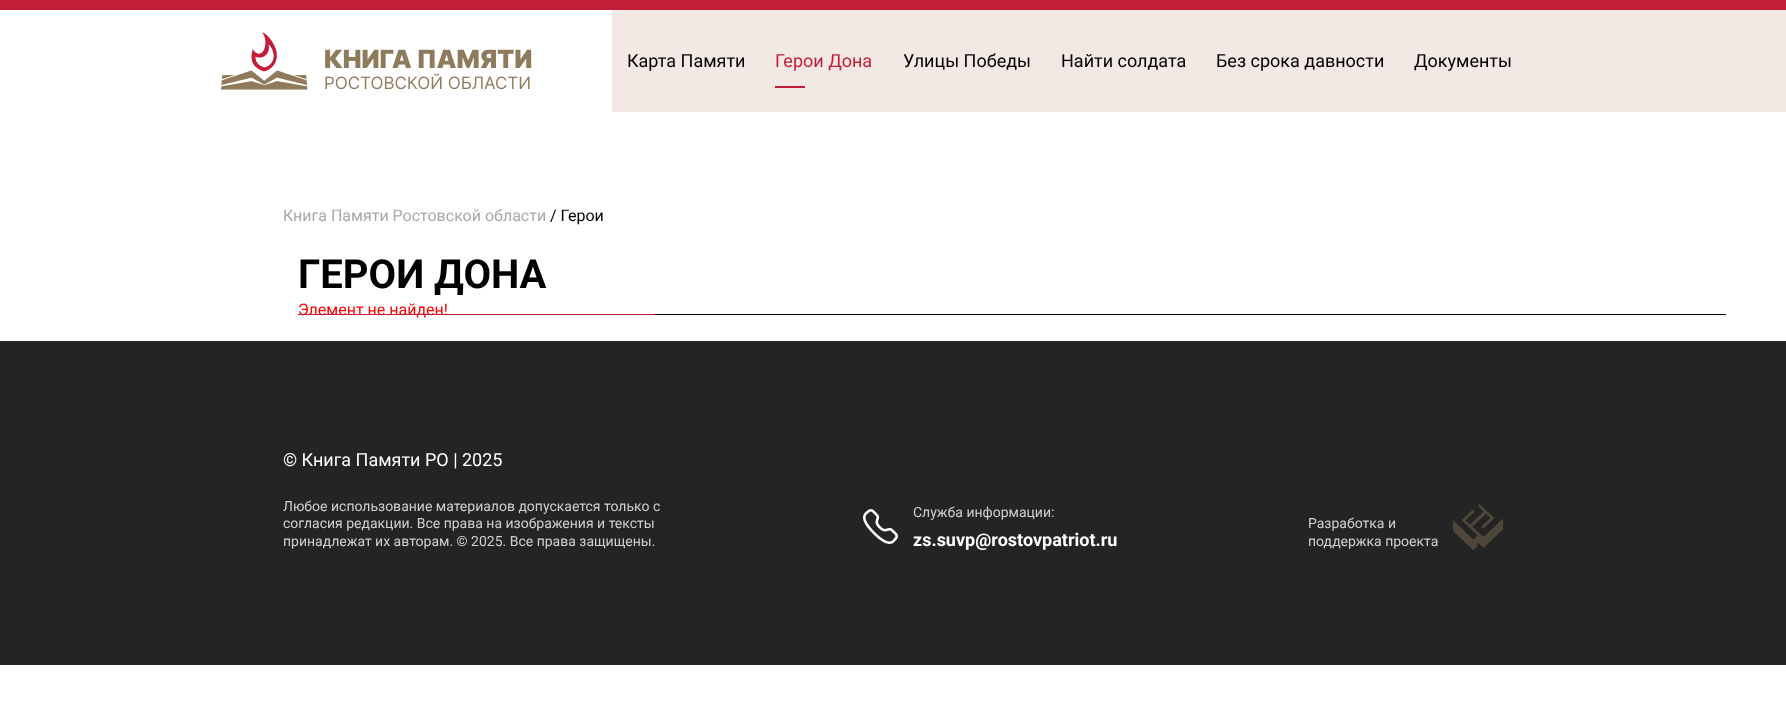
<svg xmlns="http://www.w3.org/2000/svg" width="1786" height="714">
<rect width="100%" height="100%" fill="#fff"/>
<rect x="612" y="10" width="1174" height="102" fill="#f2e8e4"/>
<rect width="1786" height="10" fill="#c21e39"/>
<image x="221" y="32" width="311" height="58" href="media/1.png"/>
<text x="627" y="67" style="font-family:Roboto;font-size:18px;fill:#000">Карта Памяти</text>
<text x="775" y="67" style="font-family:Roboto;font-size:18px;fill:#c21e39">Герои Дона</text>
<rect x="775" y="86" width="30" height="2" fill="#c21e39"/>
<text x="903" y="67" style="font-family:Roboto;font-size:18px;fill:#000">Улицы Победы</text>
<text x="1061" y="67" style="font-family:Roboto;font-size:18px;fill:#000">Найти солдата</text>
<text x="1216" y="67" style="font-family:Roboto;font-size:18px;fill:#000">Без срока давности</text>
<text x="1414" y="67" style="font-family:Roboto;font-size:18px;fill:#000">Документы</text>
<text x="283" y="221" style="font-family:Roboto;font-size:16px;fill:#a8a8a8">Книга Памяти Ростовской области</text>
<text x="550" y="221" style="font-family:Roboto;font-size:16px;fill:#000">/ Герои</text>
<text x="298" y="288" style="font-family:Roboto;font-size:40px;font-weight:bold;fill:#000">ГЕРОИ ДОНА</text>
<text x="298" y="315" style="font-family:Roboto;font-size:16px;fill:#f00">Элемент не найден!</text>
<rect x="298" y="314" width="357" height="1" fill="#c21e39"/>
<rect x="655" y="314" width="1071" height="1" fill="#000"/>
<rect y="341" width="1786" height="324" fill="#242424"/>
<text x="283" y="466" style="font-family:Roboto;font-size:18px;fill:#fff">© Книга Памяти РО | 2025</text>
<text x="283" y="511" style="font-family:Roboto;font-size:14px;fill:#d0d0d0">Любое использование материалов допускается только с</text>
<text x="283" y="528" style="font-family:Roboto;font-size:14px;fill:#d0d0d0">согласия редакции. Все права на изображения и тексты</text>
<text x="283" y="546" style="font-family:Roboto;font-size:14px;fill:#d0d0d0">принадлежат их авторам. © 2025. Все права защищены.</text>
<image x="863" y="509" width="35" height="35" href="media/2.png"/>
<text x="913" y="517" style="font-family:Roboto;font-size:14px;fill:#d0d0d0">Служба информации:</text>
<text x="913" y="546" style="font-family:Roboto;font-size:18px;font-weight:bold;fill:#fff">zs.suvp@rostovpatriot.ru</text>
<text x="1308" y="528" style="font-family:Roboto;font-size:14px;fill:#d0d0d0">Разработка и</text>
<text x="1308" y="546" style="font-family:Roboto;font-size:14px;fill:#d0d0d0">поддержка проекта</text>
<image x="1453" y="503" width="50" height="47" href="media/3.png"/>
</svg>
